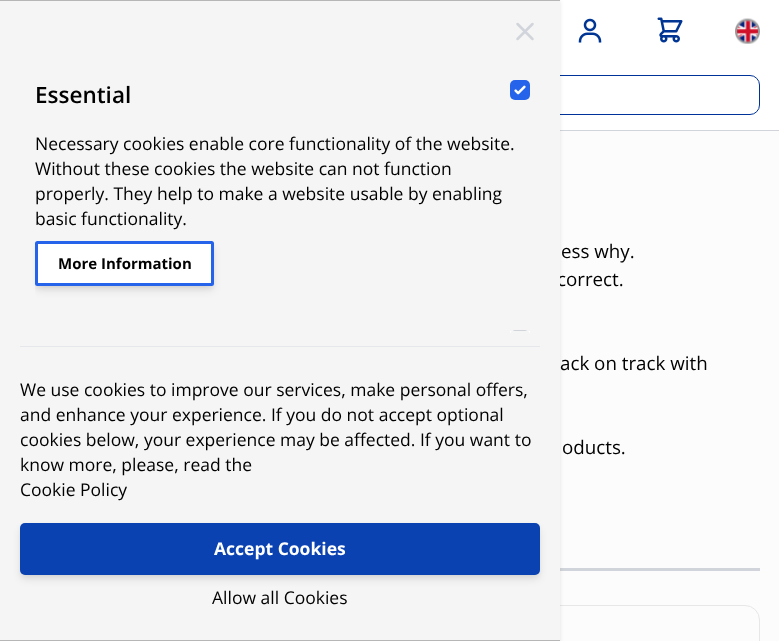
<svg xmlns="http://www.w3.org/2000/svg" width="779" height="641">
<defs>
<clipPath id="clip1"><rect x="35" y="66" width="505" height="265"/></clipPath>
<clipPath id="clip2"><rect x="35" y="66" width="505" height="265"/></clipPath>
</defs>
<rect width="100%" height="100%" fill="#fcfcfc"/>
<rect x="560" width="219" height="130" fill="#fff"/>
<rect x="560" y="130" width="219" height="1" fill="#d1d5db"/>
<image x="578" y="18" width="24" height="25" href="media/1.png"/>
<image x="657" y="17" width="26" height="26" href="media/2.png"/>
<image x="735" y="18" width="25" height="26" href="media/3.png"/>
<rect x="90.5" y="75.5" width="669" height="39" rx="9.5" fill="none" stroke="#039"/>
<rect x="560" y="568" width="200" height="3" fill="#d1d5db"/>
<rect x="20.5" y="605.5" width="739" height="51" rx="14.5" fill="none" stroke="#e7e7e7"/>
<rect y="1" width="560" height="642" fill="#0000001a" filter="blur(2px)"/>
<text x="557" y="286" style="font-family:Open Sans;font-size:18.75px;fill:#000">correct.</text>
<rect y="1" width="560" height="639" fill="#f5f5f5"/>
<rect width="560" height="1" fill="#b6b6b6"/>
<rect y="640" width="560" height="1" fill="#b6b6b6"/>
<path d="M517.5 39l15-15m-15 0l15 15" fill="none" stroke="#d1d5db" stroke-width="2.5" stroke-linecap="round" stroke-linejoin="round"/>
<text x="35" y="103" style="font-family:Open Sans;font-size:22.5px;font-weight:600;fill:#000">Essential</text>
<rect x="510" y="80" width="20" height="20" rx="5" fill="#2563eb"/>
<image x="514" y="85" width="12" height="10" href="media/4.png"/>
<text x="35" y="150" style="font-family:Open Sans;font-size:17.5px;fill:#000">Necessary cookies enable core functionality of the website.</text>
<text x="35" y="175" style="font-family:Open Sans;font-size:17.5px;fill:#000">Without these cookies the website can not function</text>
<text x="35" y="200" style="font-family:Open Sans;font-size:17.5px;fill:#000">properly. They help to make a website usable by enabling</text>
<text x="35" y="225" style="font-family:Open Sans;font-size:17.5px;fill:#000">basic functionality.</text>
<rect x="36" y="245" width="177" height="43" rx="1" fill="#0000000f" filter="blur(2.5px)"/>
<g clip-path="url(#clip1)">
<rect x="36" y="248" width="177" height="42" rx="1" fill="#0000001a" filter="blur(4px)"/>
</g>
<rect x="36.5" y="242.5" width="176" height="42" rx="1" fill="#fff" stroke="#2563eb" stroke-width="3"/>
<text x="58" y="269" style="font-family:Open Sans;font-size:15px;font-weight:bold;fill:#000">More Information</text>
<path d="M515 330h10c3 0 5 2 5 5v-4h-20v4c0-3 2-5 5-5z" fill="#fff"/>
<rect x="20" y="346" width="520" height="1" fill="#e5e7eb"/>
<g clip-path="url(#clip2)">
<rect x="510.5" y="330.5" width="19" height="19" rx="4.5" fill="none" stroke="#d1d5db"/>
</g>
<text x="20" y="396" style="font-family:Open Sans;font-size:17.5px;fill:#000">We use cookies to improve our services, make personal offers,</text>
<text x="20" y="421" style="font-family:Open Sans;font-size:17.5px;fill:#000">and enhance your experience. If you do not accept optional</text>
<text x="20" y="446" style="font-family:Open Sans;font-size:17.5px;fill:#000">cookies below, your experience may be affected. If you want to</text>
<text x="20" y="471" style="font-family:Open Sans;font-size:17.5px;fill:#000">know more, please, read the</text>
<text x="20" y="496" style="font-family:Open Sans;font-size:17.5px;fill:#000">Cookie Policy</text>
<rect x="21" y="526" width="518" height="50" rx="4" fill="#0000000f" filter="blur(2.5px)"/>
<rect x="21" y="529" width="518" height="50" rx="4" fill="#0000001a" filter="blur(4px)"/>
<rect x="20" y="523" width="520" height="52" rx="5" fill="#0a42b1"/>
<text x="214" y="555" style="font-family:Open Sans;font-size:17.5px;font-weight:bold;fill:#fff">Accept Cookies</text>
<text x="212" y="604" style="font-family:Open Sans;font-size:17.5px;fill:#000">Allow all Cookies</text>
<text x="561" y="258" style="font-family:Open Sans;font-size:18.75px;fill:#000">ess why.</text>
<text x="560" y="370" style="font-family:Open Sans;font-size:18.75px;fill:#000">ack on track with</text>
<text x="562" y="454" style="font-family:Open Sans;font-size:18.75px;fill:#000">oducts.</text>
</svg>
